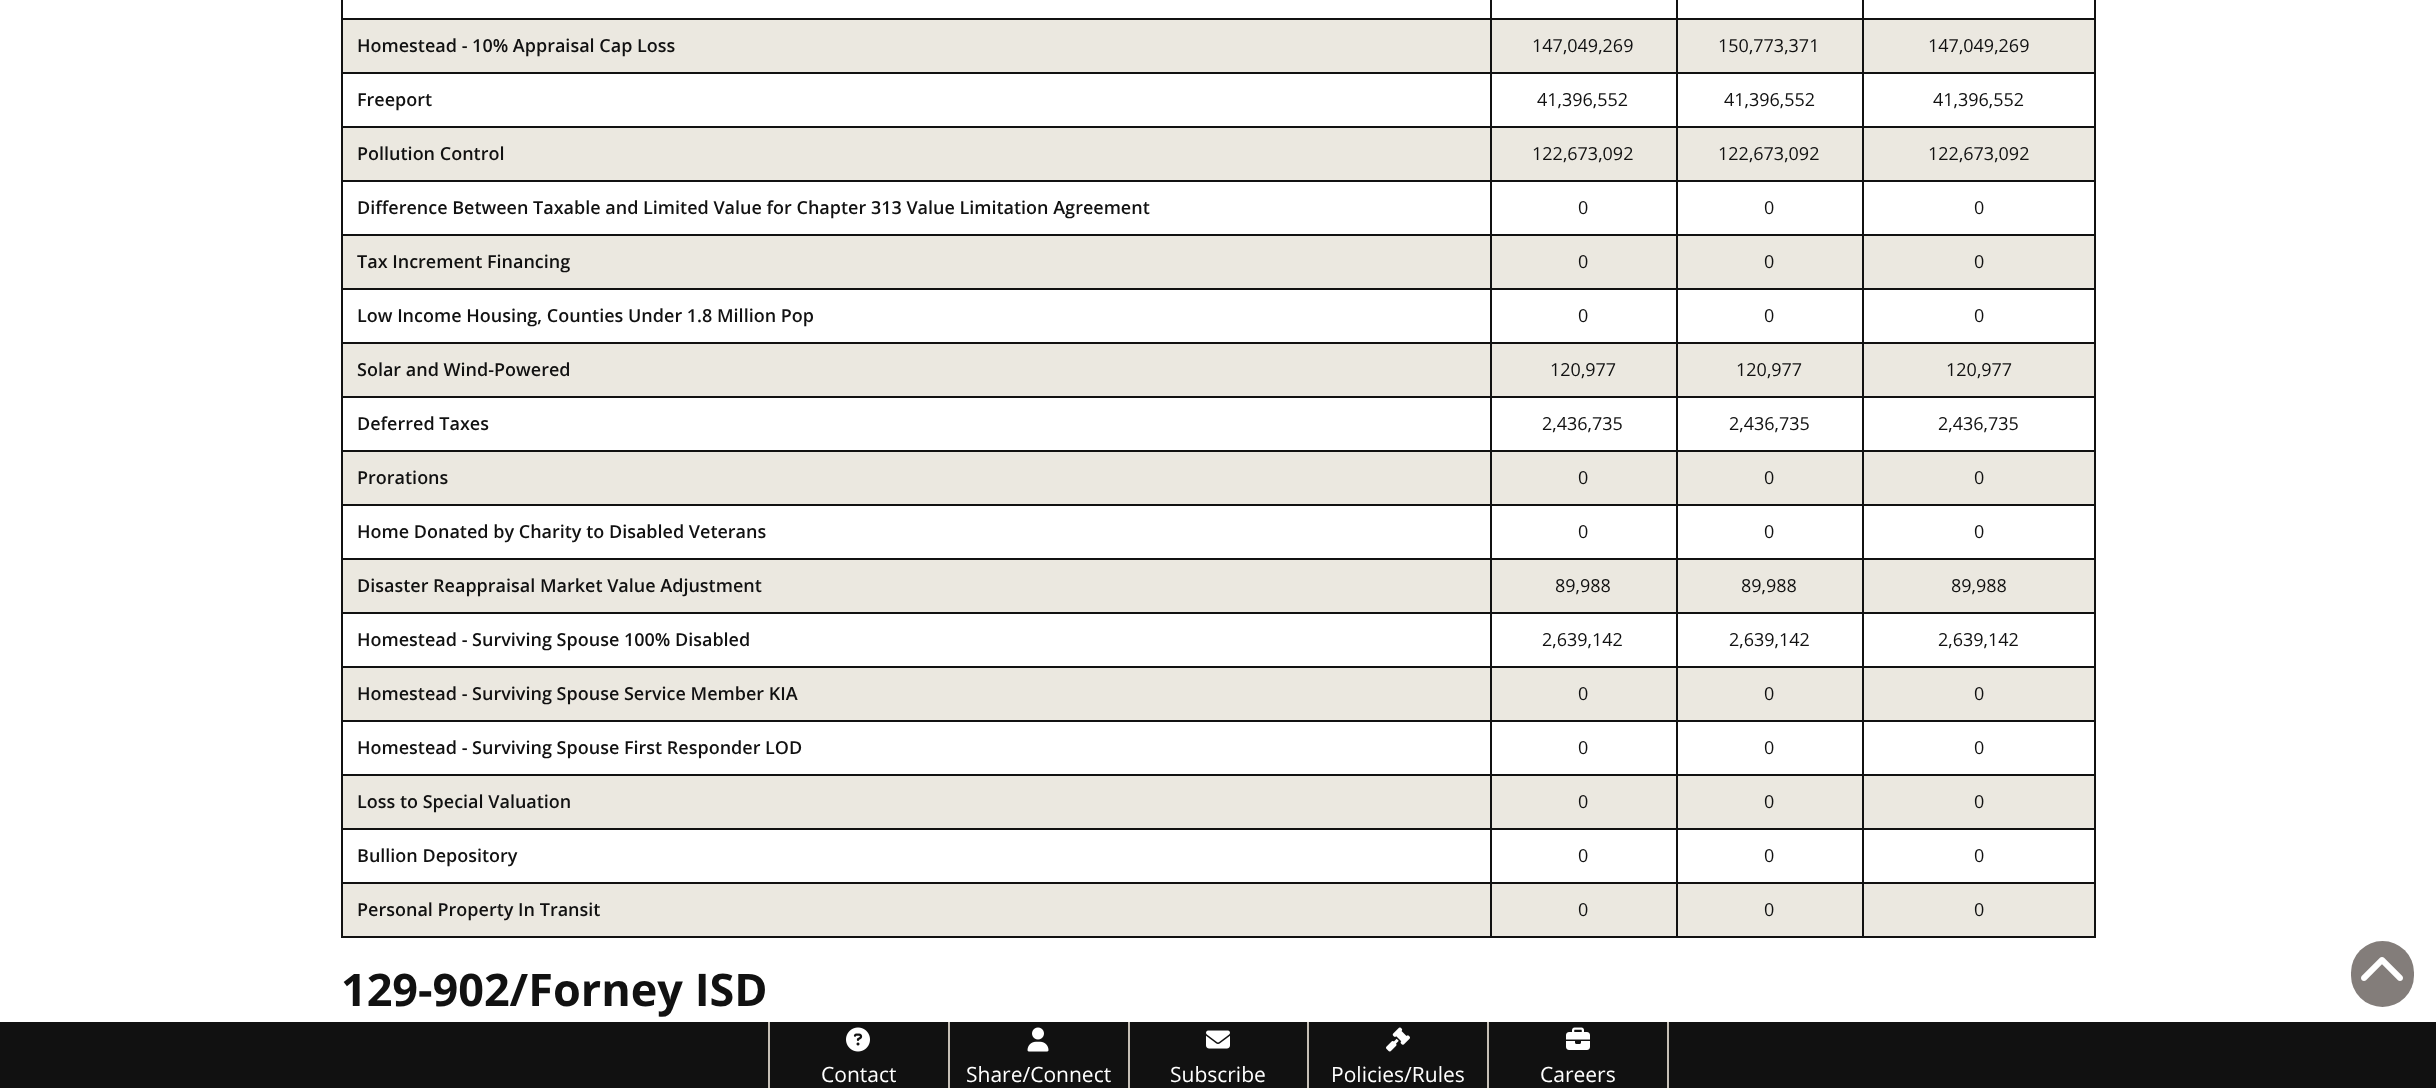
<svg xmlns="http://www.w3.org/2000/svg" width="2436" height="1088">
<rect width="100%" height="100%" fill="#fff"/>
<rect x="1862" y="18" width="234" height="2" fill="#111"/>
<rect x="343" y="20" width="1751" height="52" fill="#ebe8e0"/>
<rect x="1862" y="72" width="234" height="2" fill="#111"/>
<rect x="1862" y="126" width="234" height="2" fill="#111"/>
<rect x="343" y="128" width="1751" height="52" fill="#ebe8e0"/>
<rect x="1862" y="180" width="234" height="2" fill="#111"/>
<rect x="1862" y="234" width="234" height="2" fill="#111"/>
<rect x="343" y="236" width="1751" height="52" fill="#ebe8e0"/>
<rect x="1862" y="288" width="234" height="2" fill="#111"/>
<rect x="1862" y="342" width="234" height="2" fill="#111"/>
<rect x="343" y="344" width="1751" height="52" fill="#ebe8e0"/>
<rect x="1862" y="396" width="234" height="2" fill="#111"/>
<rect x="1862" y="450" width="234" height="2" fill="#111"/>
<rect x="343" y="452" width="1751" height="52" fill="#ebe8e0"/>
<rect x="1862" y="504" width="234" height="2" fill="#111"/>
<rect x="1862" y="558" width="234" height="2" fill="#111"/>
<rect x="343" y="560" width="1751" height="52" fill="#ebe8e0"/>
<rect x="1862" y="612" width="234" height="2" fill="#111"/>
<rect x="1862" y="666" width="234" height="2" fill="#111"/>
<rect x="343" y="668" width="1751" height="52" fill="#ebe8e0"/>
<rect x="1862" y="720" width="234" height="2" fill="#111"/>
<rect x="1862" y="774" width="234" height="2" fill="#111"/>
<rect x="343" y="776" width="1751" height="52" fill="#ebe8e0"/>
<rect x="1862" y="828" width="234" height="2" fill="#111"/>
<rect x="1862" y="882" width="234" height="2" fill="#111"/>
<rect x="343" y="884" width="1751" height="52" fill="#ebe8e0"/>
<rect x="2094" y="882" width="2" height="56" fill="#111"/>
<rect x="1862" y="936" width="234" height="2" fill="#111"/>
<rect x="1862" y="882" width="2" height="56" fill="#111"/>
<rect x="1676" y="882" width="187" height="2" fill="#111"/>
<rect x="1862" y="828" width="2" height="56" fill="#111"/>
<rect x="1676" y="828" width="187" height="2" fill="#111"/>
<rect x="1862" y="774" width="2" height="56" fill="#111"/>
<rect x="1676" y="774" width="187" height="2" fill="#111"/>
<rect x="1862" y="720" width="2" height="56" fill="#111"/>
<rect x="1676" y="720" width="187" height="2" fill="#111"/>
<rect x="1862" y="666" width="2" height="56" fill="#111"/>
<rect x="1676" y="666" width="187" height="2" fill="#111"/>
<rect x="1862" y="612" width="2" height="56" fill="#111"/>
<rect x="1676" y="612" width="187" height="2" fill="#111"/>
<rect x="1862" y="558" width="2" height="56" fill="#111"/>
<rect x="1676" y="558" width="187" height="2" fill="#111"/>
<rect x="1862" y="504" width="2" height="56" fill="#111"/>
<rect x="1676" y="504" width="187" height="2" fill="#111"/>
<rect x="1862" y="450" width="2" height="56" fill="#111"/>
<rect x="1676" y="450" width="187" height="2" fill="#111"/>
<rect x="1862" y="396" width="2" height="56" fill="#111"/>
<rect x="1676" y="396" width="187" height="2" fill="#111"/>
<rect x="1862" y="342" width="2" height="56" fill="#111"/>
<rect x="1676" y="342" width="187" height="2" fill="#111"/>
<rect x="1862" y="288" width="2" height="56" fill="#111"/>
<rect x="1676" y="288" width="187" height="2" fill="#111"/>
<rect x="1862" y="234" width="2" height="56" fill="#111"/>
<rect x="1676" y="234" width="187" height="2" fill="#111"/>
<rect x="1862" y="180" width="2" height="56" fill="#111"/>
<rect x="1676" y="180" width="187" height="2" fill="#111"/>
<rect x="1862" y="126" width="2" height="56" fill="#111"/>
<rect x="1676" y="126" width="187" height="2" fill="#111"/>
<rect x="1862" y="72" width="2" height="56" fill="#111"/>
<rect x="1676" y="72" width="187" height="2" fill="#111"/>
<rect x="1862" y="18" width="2" height="56" fill="#111"/>
<rect x="1676" y="18" width="187" height="2" fill="#111"/>
<rect x="1676" y="936" width="187" height="2" fill="#111"/>
<rect x="1676" y="882" width="2" height="56" fill="#111"/>
<rect x="1490" y="882" width="187" height="2" fill="#111"/>
<rect x="1676" y="828" width="2" height="56" fill="#111"/>
<rect x="1490" y="828" width="187" height="2" fill="#111"/>
<rect x="1676" y="774" width="2" height="56" fill="#111"/>
<rect x="1490" y="774" width="187" height="2" fill="#111"/>
<rect x="1676" y="720" width="2" height="56" fill="#111"/>
<rect x="1490" y="720" width="187" height="2" fill="#111"/>
<rect x="1676" y="666" width="2" height="56" fill="#111"/>
<rect x="1490" y="666" width="187" height="2" fill="#111"/>
<rect x="1676" y="612" width="2" height="56" fill="#111"/>
<rect x="1490" y="612" width="187" height="2" fill="#111"/>
<rect x="1676" y="558" width="2" height="56" fill="#111"/>
<rect x="1490" y="558" width="187" height="2" fill="#111"/>
<rect x="1676" y="504" width="2" height="56" fill="#111"/>
<rect x="1490" y="504" width="187" height="2" fill="#111"/>
<rect x="1676" y="450" width="2" height="56" fill="#111"/>
<rect x="1490" y="450" width="187" height="2" fill="#111"/>
<rect x="1676" y="396" width="2" height="56" fill="#111"/>
<rect x="1490" y="396" width="187" height="2" fill="#111"/>
<rect x="1676" y="342" width="2" height="56" fill="#111"/>
<rect x="1490" y="342" width="187" height="2" fill="#111"/>
<rect x="1676" y="288" width="2" height="56" fill="#111"/>
<rect x="1490" y="288" width="187" height="2" fill="#111"/>
<rect x="1676" y="234" width="2" height="56" fill="#111"/>
<rect x="1490" y="234" width="187" height="2" fill="#111"/>
<rect x="1676" y="180" width="2" height="56" fill="#111"/>
<rect x="1490" y="180" width="187" height="2" fill="#111"/>
<rect x="1676" y="126" width="2" height="56" fill="#111"/>
<rect x="1490" y="126" width="187" height="2" fill="#111"/>
<rect x="1676" y="72" width="2" height="56" fill="#111"/>
<rect x="1490" y="72" width="187" height="2" fill="#111"/>
<rect x="1676" y="18" width="2" height="56" fill="#111"/>
<rect x="1490" y="18" width="187" height="2" fill="#111"/>
<rect x="1490" y="936" width="187" height="2" fill="#111"/>
<rect x="1490" y="882" width="2" height="56" fill="#111"/>
<rect x="341" y="882" width="1150" height="2" fill="#111"/>
<rect x="1490" y="828" width="2" height="56" fill="#111"/>
<rect x="341" y="828" width="1150" height="2" fill="#111"/>
<rect x="1490" y="774" width="2" height="56" fill="#111"/>
<rect x="341" y="774" width="1150" height="2" fill="#111"/>
<rect x="1490" y="720" width="2" height="56" fill="#111"/>
<rect x="341" y="720" width="1150" height="2" fill="#111"/>
<rect x="1490" y="666" width="2" height="56" fill="#111"/>
<rect x="341" y="666" width="1150" height="2" fill="#111"/>
<rect x="1490" y="612" width="2" height="56" fill="#111"/>
<rect x="341" y="612" width="1150" height="2" fill="#111"/>
<rect x="1490" y="558" width="2" height="56" fill="#111"/>
<rect x="341" y="558" width="1150" height="2" fill="#111"/>
<rect x="1490" y="504" width="2" height="56" fill="#111"/>
<rect x="341" y="504" width="1150" height="2" fill="#111"/>
<rect x="1490" y="450" width="2" height="56" fill="#111"/>
<rect x="341" y="450" width="1150" height="2" fill="#111"/>
<rect x="1490" y="396" width="2" height="56" fill="#111"/>
<rect x="341" y="396" width="1150" height="2" fill="#111"/>
<rect x="1490" y="342" width="2" height="56" fill="#111"/>
<rect x="341" y="342" width="1150" height="2" fill="#111"/>
<rect x="1490" y="288" width="2" height="56" fill="#111"/>
<rect x="341" y="288" width="1150" height="2" fill="#111"/>
<rect x="1490" y="234" width="2" height="56" fill="#111"/>
<rect x="341" y="234" width="1150" height="2" fill="#111"/>
<rect x="1490" y="180" width="2" height="56" fill="#111"/>
<rect x="341" y="180" width="1150" height="2" fill="#111"/>
<rect x="1490" y="126" width="2" height="56" fill="#111"/>
<rect x="341" y="126" width="1150" height="2" fill="#111"/>
<rect x="1490" y="72" width="2" height="56" fill="#111"/>
<rect x="341" y="72" width="1150" height="2" fill="#111"/>
<rect x="1490" y="18" width="2" height="56" fill="#111"/>
<rect x="341" y="18" width="1150" height="2" fill="#111"/>
<rect x="1490" width="2" height="20" fill="#111"/>
<rect x="1676" width="2" height="20" fill="#111"/>
<rect x="1862" width="2" height="20" fill="#111"/>
<rect x="341" y="936" width="1150" height="2" fill="#111"/>
<rect x="341" y="882" width="2" height="56" fill="#111"/>
<rect x="341" y="828" width="2" height="56" fill="#111"/>
<rect x="341" y="774" width="2" height="56" fill="#111"/>
<rect x="341" y="720" width="2" height="56" fill="#111"/>
<rect x="341" y="666" width="2" height="56" fill="#111"/>
<rect x="341" y="612" width="2" height="56" fill="#111"/>
<rect x="341" y="558" width="2" height="56" fill="#111"/>
<rect x="341" y="504" width="2" height="56" fill="#111"/>
<rect x="341" y="450" width="2" height="56" fill="#111"/>
<rect x="341" y="396" width="2" height="56" fill="#111"/>
<rect x="341" y="342" width="2" height="56" fill="#111"/>
<rect x="341" y="288" width="2" height="56" fill="#111"/>
<rect x="341" y="234" width="2" height="56" fill="#111"/>
<rect x="341" y="180" width="2" height="56" fill="#111"/>
<rect x="341" y="126" width="2" height="56" fill="#111"/>
<rect x="341" y="72" width="2" height="56" fill="#111"/>
<rect x="341" width="2" height="74" fill="#111"/>
<text x="357" y="52" style="font-family:Open Sans;font-size:18px;font-weight:600;fill:#111">Homestead - 10% Appraisal Cap Loss</text>
<text x="1532" y="52" style="font-family:Open Sans;font-size:18px;fill:#111">147,049,269</text>
<text x="1718" y="52" style="font-family:Open Sans;font-size:18px;fill:#111">150,773,371</text>
<rect x="2094" y="828" width="2" height="56" fill="#111"/>
<rect x="2094" y="774" width="2" height="56" fill="#111"/>
<rect x="2094" y="720" width="2" height="56" fill="#111"/>
<rect x="2094" y="666" width="2" height="56" fill="#111"/>
<rect x="2094" y="612" width="2" height="56" fill="#111"/>
<rect x="2094" y="558" width="2" height="56" fill="#111"/>
<rect x="2094" y="504" width="2" height="56" fill="#111"/>
<rect x="2094" y="450" width="2" height="56" fill="#111"/>
<rect x="2094" y="396" width="2" height="56" fill="#111"/>
<rect x="2094" y="342" width="2" height="56" fill="#111"/>
<rect x="2094" y="288" width="2" height="56" fill="#111"/>
<rect x="2094" y="234" width="2" height="56" fill="#111"/>
<rect x="2094" y="180" width="2" height="56" fill="#111"/>
<rect x="2094" y="126" width="2" height="56" fill="#111"/>
<rect x="2094" y="72" width="2" height="56" fill="#111"/>
<rect x="2094" width="2" height="74" fill="#111"/>
<text x="1928" y="52" style="font-family:Open Sans;font-size:18px;fill:#111">147,049,269</text>
<text x="357" y="106" style="font-family:Open Sans;font-size:18px;font-weight:600;fill:#111">Freeport</text>
<text x="1537" y="106" style="font-family:Open Sans;font-size:18px;fill:#111">41,396,552</text>
<text x="1724" y="106" style="font-family:Open Sans;font-size:18px;fill:#111">41,396,552</text>
<text x="1933" y="106" style="font-family:Open Sans;font-size:18px;fill:#111">41,396,552</text>
<text x="357" y="160" style="font-family:Open Sans;font-size:18px;font-weight:600;fill:#111">Pollution Control</text>
<text x="1532" y="160" style="font-family:Open Sans;font-size:18px;fill:#111">122,673,092</text>
<text x="1718" y="160" style="font-family:Open Sans;font-size:18px;fill:#111">122,673,092</text>
<text x="1928" y="160" style="font-family:Open Sans;font-size:18px;fill:#111">122,673,092</text>
<text x="357" y="214" style="font-family:Open Sans;font-size:18px;font-weight:600;fill:#111">Difference Between Taxable and Limited Value for Chapter 313 Value Limitation Agreement</text>
<text x="1578" y="214" style="font-family:Open Sans;font-size:18px;fill:#111">0</text>
<text x="1764" y="214" style="font-family:Open Sans;font-size:18px;fill:#111">0</text>
<text x="1974" y="214" style="font-family:Open Sans;font-size:18px;fill:#111">0</text>
<text x="357" y="268" style="font-family:Open Sans;font-size:18px;font-weight:600;fill:#111">Tax Increment Financing</text>
<text x="1578" y="268" style="font-family:Open Sans;font-size:18px;fill:#111">0</text>
<text x="1764" y="268" style="font-family:Open Sans;font-size:18px;fill:#111">0</text>
<text x="1974" y="268" style="font-family:Open Sans;font-size:18px;fill:#111">0</text>
<text x="357" y="322" style="font-family:Open Sans;font-size:18px;font-weight:600;fill:#111">Low Income Housing, Counties Under 1.8 Million Pop</text>
<text x="1578" y="322" style="font-family:Open Sans;font-size:18px;fill:#111">0</text>
<text x="1764" y="322" style="font-family:Open Sans;font-size:18px;fill:#111">0</text>
<text x="1974" y="322" style="font-family:Open Sans;font-size:18px;fill:#111">0</text>
<text x="357" y="376" style="font-family:Open Sans;font-size:18px;font-weight:600;fill:#111">Solar and Wind-Powered</text>
<text x="1550" y="376" style="font-family:Open Sans;font-size:18px;fill:#111">120,977</text>
<text x="1736" y="376" style="font-family:Open Sans;font-size:18px;fill:#111">120,977</text>
<text x="1946" y="376" style="font-family:Open Sans;font-size:18px;fill:#111">120,977</text>
<text x="357" y="430" style="font-family:Open Sans;font-size:18px;font-weight:600;fill:#111">Deferred Taxes</text>
<text x="1542" y="430" style="font-family:Open Sans;font-size:18px;fill:#111">2,436,735</text>
<text x="1729" y="430" style="font-family:Open Sans;font-size:18px;fill:#111">2,436,735</text>
<text x="1938" y="430" style="font-family:Open Sans;font-size:18px;fill:#111">2,436,735</text>
<text x="357" y="484" style="font-family:Open Sans;font-size:18px;font-weight:600;fill:#111">Prorations</text>
<text x="1578" y="484" style="font-family:Open Sans;font-size:18px;fill:#111">0</text>
<text x="1764" y="484" style="font-family:Open Sans;font-size:18px;fill:#111">0</text>
<text x="1974" y="484" style="font-family:Open Sans;font-size:18px;fill:#111">0</text>
<text x="357" y="538" style="font-family:Open Sans;font-size:18px;font-weight:600;fill:#111">Home Donated by Charity to Disabled Veterans</text>
<text x="1578" y="538" style="font-family:Open Sans;font-size:18px;fill:#111">0</text>
<text x="1764" y="538" style="font-family:Open Sans;font-size:18px;fill:#111">0</text>
<text x="1974" y="538" style="font-family:Open Sans;font-size:18px;fill:#111">0</text>
<text x="357" y="592" style="font-family:Open Sans;font-size:18px;font-weight:600;fill:#111">Disaster Reappraisal Market Value Adjustment</text>
<text x="1555" y="592" style="font-family:Open Sans;font-size:18px;fill:#111">89,988</text>
<text x="1741" y="592" style="font-family:Open Sans;font-size:18px;fill:#111">89,988</text>
<text x="1951" y="592" style="font-family:Open Sans;font-size:18px;fill:#111">89,988</text>
<text x="357" y="646" style="font-family:Open Sans;font-size:18px;font-weight:600;fill:#111">Homestead - Surviving Spouse 100% Disabled</text>
<text x="1542" y="646" style="font-family:Open Sans;font-size:18px;fill:#111">2,639,142</text>
<text x="1729" y="646" style="font-family:Open Sans;font-size:18px;fill:#111">2,639,142</text>
<text x="1938" y="646" style="font-family:Open Sans;font-size:18px;fill:#111">2,639,142</text>
<text x="357" y="700" style="font-family:Open Sans;font-size:18px;font-weight:600;fill:#111">Homestead - Surviving Spouse Service Member KIA</text>
<text x="1578" y="700" style="font-family:Open Sans;font-size:18px;fill:#111">0</text>
<text x="1764" y="700" style="font-family:Open Sans;font-size:18px;fill:#111">0</text>
<text x="1974" y="700" style="font-family:Open Sans;font-size:18px;fill:#111">0</text>
<text x="357" y="754" style="font-family:Open Sans;font-size:18px;font-weight:600;fill:#111">Homestead - Surviving Spouse First Responder LOD</text>
<text x="1578" y="754" style="font-family:Open Sans;font-size:18px;fill:#111">0</text>
<text x="1764" y="754" style="font-family:Open Sans;font-size:18px;fill:#111">0</text>
<text x="1974" y="754" style="font-family:Open Sans;font-size:18px;fill:#111">0</text>
<text x="357" y="808" style="font-family:Open Sans;font-size:18px;font-weight:600;fill:#111">Loss to Special Valuation</text>
<text x="1578" y="808" style="font-family:Open Sans;font-size:18px;fill:#111">0</text>
<text x="1764" y="808" style="font-family:Open Sans;font-size:18px;fill:#111">0</text>
<text x="1974" y="808" style="font-family:Open Sans;font-size:18px;fill:#111">0</text>
<text x="357" y="862" style="font-family:Open Sans;font-size:18px;font-weight:600;fill:#111">Bullion Depository</text>
<text x="1578" y="862" style="font-family:Open Sans;font-size:18px;fill:#111">0</text>
<text x="1764" y="862" style="font-family:Open Sans;font-size:18px;fill:#111">0</text>
<text x="1974" y="862" style="font-family:Open Sans;font-size:18px;fill:#111">0</text>
<text x="357" y="916" style="font-family:Open Sans;font-size:18px;font-weight:600;fill:#111">Personal Property In Transit</text>
<text x="1578" y="916" style="font-family:Open Sans;font-size:18px;fill:#111">0</text>
<text x="1764" y="916" style="font-family:Open Sans;font-size:18px;fill:#111">0</text>
<text x="1974" y="916" style="font-family:Open Sans;font-size:18px;fill:#111">0</text>
<text x="341" y="1006" style="font-family:Open Sans;font-size:45px;font-weight:bold;fill:#111">129-902/Forney ISD</text>
<rect x="2351" y="941" width="63" height="66" rx="31.5" fill="#837d7a"/>
<image x="2361" y="957" width="42" height="24" href="media/1.png"/>
<rect y="1022" width="2436" height="66" fill="#111"/>
<rect x="948" y="1022" width="2" height="66" fill="#c5bfb5"/>
<rect x="768" y="1022" width="2" height="66" fill="#c5bfb5"/>
<image x="846" y="1027" width="24" height="25" href="media/2.png"/>
<text x="821" y="1082" style="font-family:Open Sans;font-size:21px;fill:#fff">Contact</text>
<rect x="1128" y="1022" width="2" height="66" fill="#c5bfb5"/>
<image x="1027" y="1027" width="22" height="25" href="media/3.png"/>
<text x="966" y="1082" style="font-family:Open Sans;font-size:21px;fill:#fff">Share/Connect</text>
<rect x="1307" y="1022" width="2" height="66" fill="#c5bfb5"/>
<image x="1206" y="1030" width="24" height="19" href="media/4.png"/>
<text x="1170" y="1082" style="font-family:Open Sans;font-size:21px;fill:#fff">Subscribe</text>
<rect x="1487" y="1022" width="2" height="66" fill="#c5bfb5"/>
<image x="1386" y="1027" width="24" height="25" href="media/5.png"/>
<text x="1331" y="1082" style="font-family:Open Sans;font-size:21px;fill:#fff">Policies/Rules</text>
<rect x="1667" y="1022" width="2" height="66" fill="#c5bfb5"/>
<image x="1566" y="1027" width="24" height="23" href="media/6.png"/>
<text x="1540" y="1082" style="font-family:Open Sans;font-size:21px;fill:#fff">Careers</text>
</svg>
